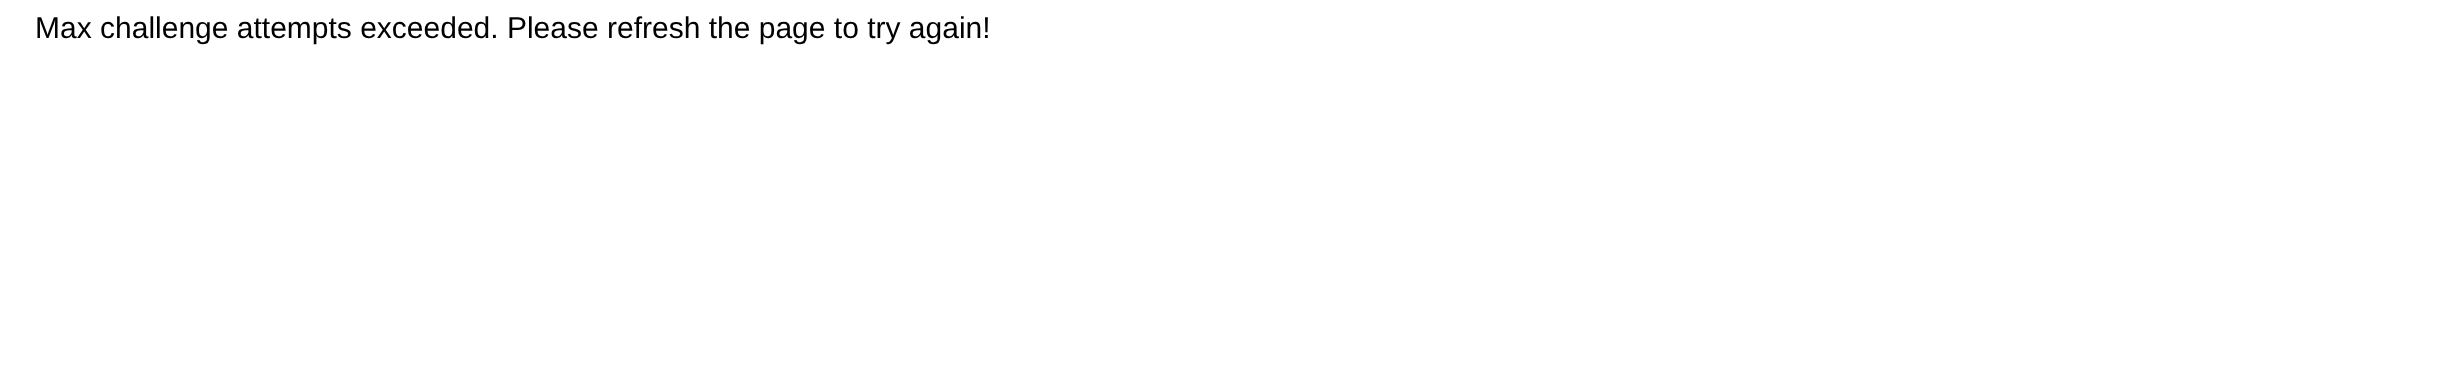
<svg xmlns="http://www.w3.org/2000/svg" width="2437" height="387">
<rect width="100%" height="100%" fill="#fff"/>
<text x="35" y="38" style="font-family:Liberation Sans;font-size:30px;fill:#000">Max challenge attempts exceeded. Please refresh the page to try again!</text>
</svg>
